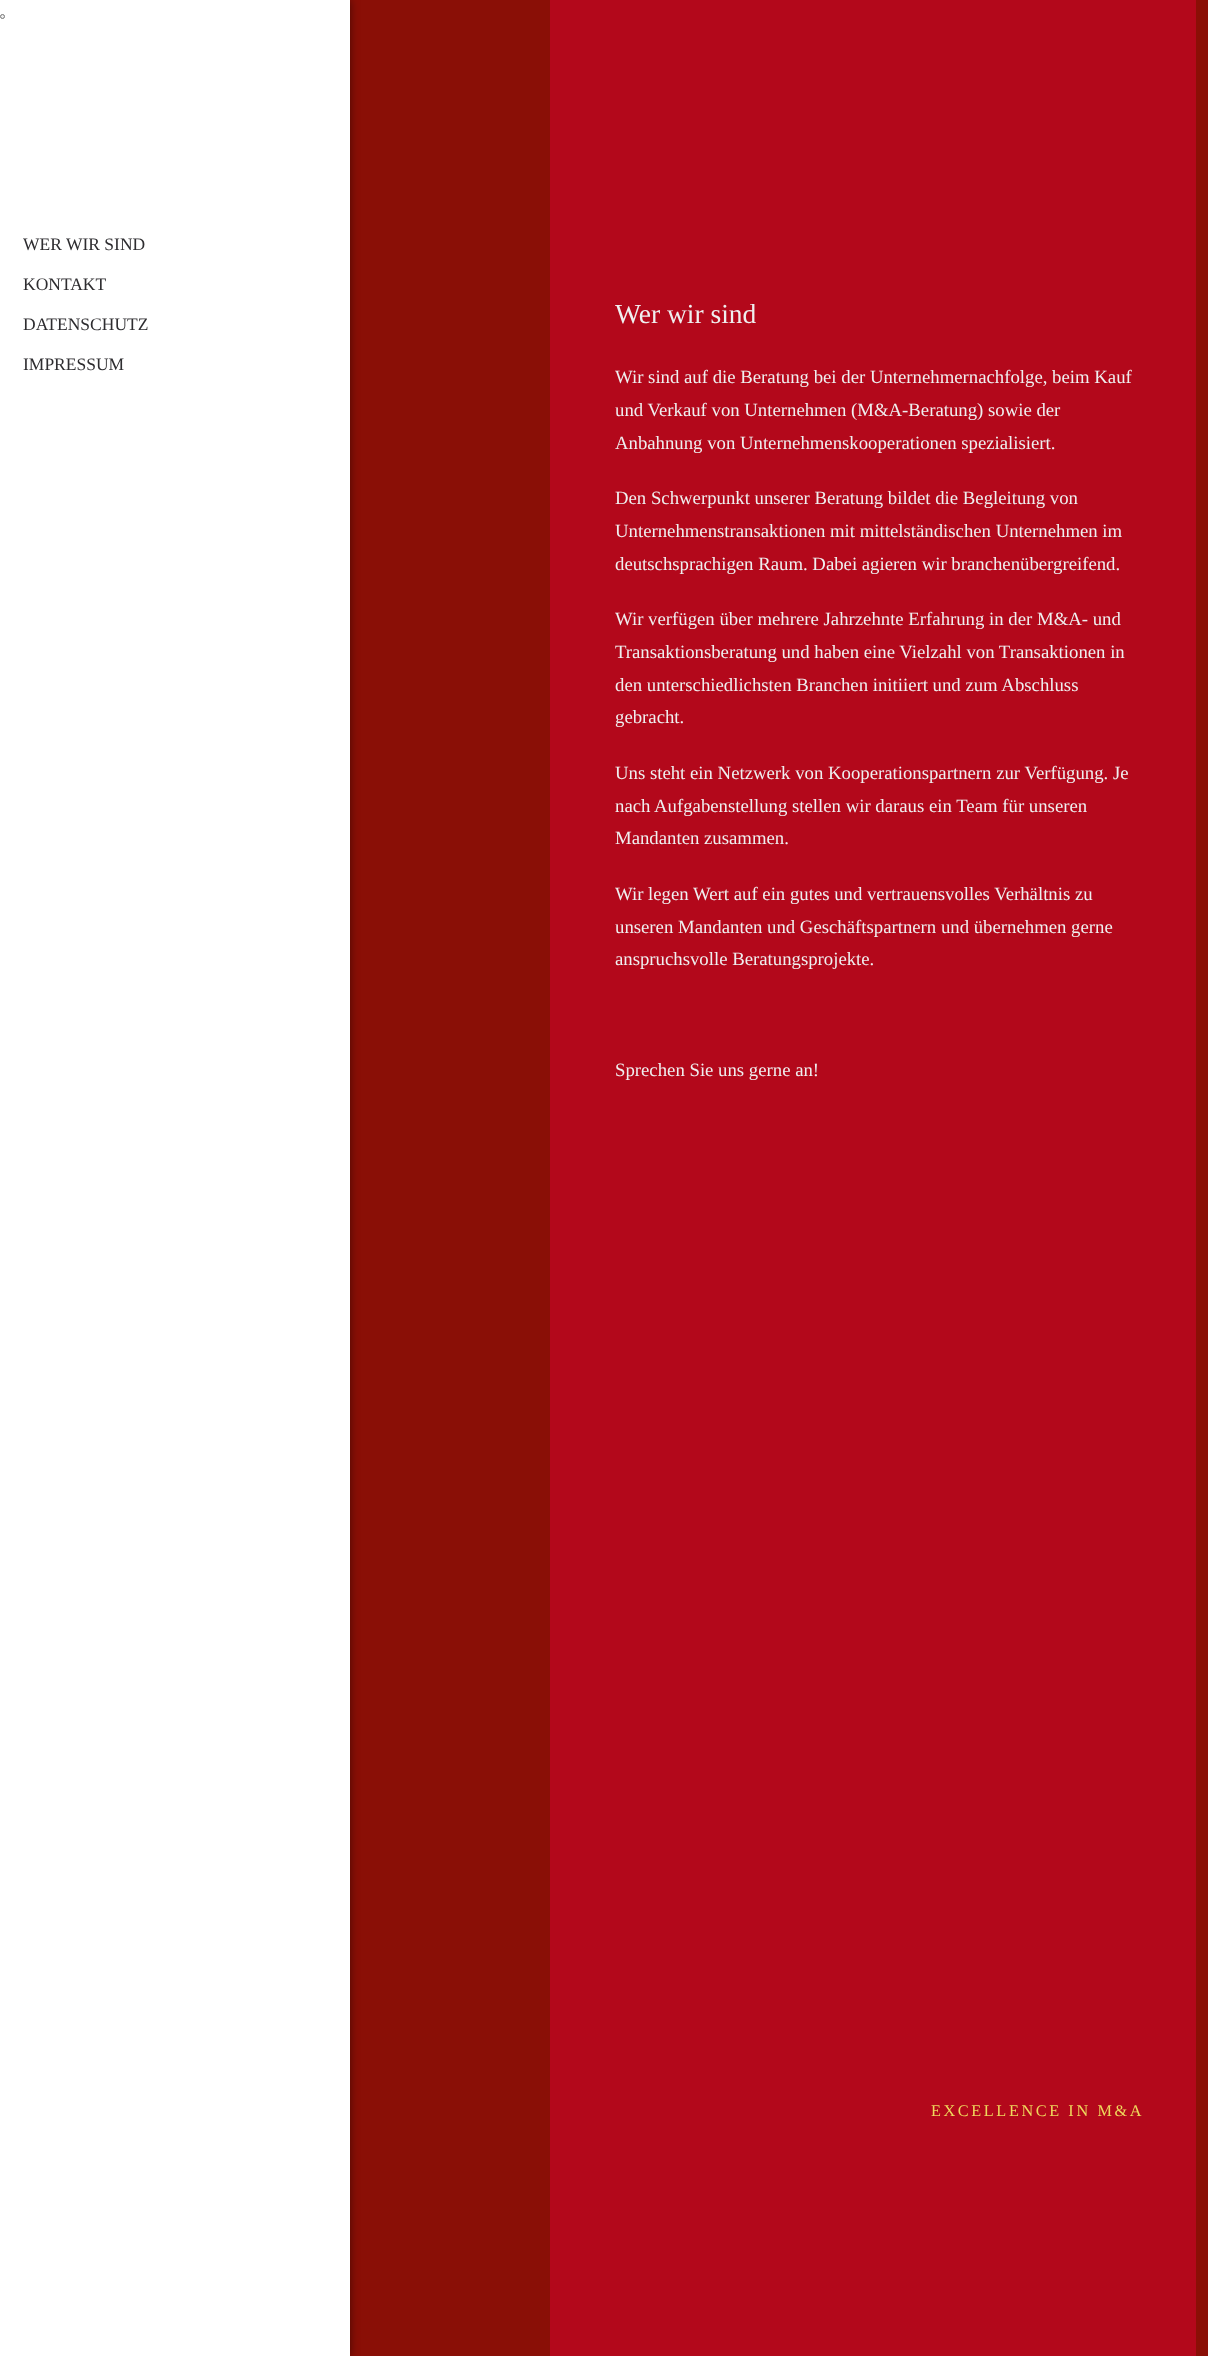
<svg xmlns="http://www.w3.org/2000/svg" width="1208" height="2356">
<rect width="100%" height="100%" fill="#8a0f06"/>
<rect width="350" height="2356" fill="#00000080" filter="blur(5px)"/>
<rect width="350" height="2356" fill="#fff"/>
<circle cx="2.5" cy="16.5" r="2" fill="#efefef" stroke="#767676"/>
<text x="23" y="250" style="font-family:Liberation Serif;font-size:17.5px;fill:#2e2d30">WER WIR SIND</text>
<text x="23" y="290" style="font-family:Liberation Serif;font-size:17.5px;fill:#2e2d30">KONTAKT</text>
<text x="23" y="330" style="font-family:Liberation Serif;font-size:17.5px;fill:#2e2d30">DATENSCHUTZ</text>
<text x="23" y="370" style="font-family:Liberation Serif;font-size:17.5px;fill:#2e2d30">IMPRESSUM</text>
<rect x="550" width="646" height="2356" fill="#b3081b"/>
<text x="615" y="323" style="font-family:Liberation Serif;font-size:27.5px;fill:#efefef">Wer wir sind</text>
<text x="615" y="383" style="font-family:Liberation Serif;font-size:18.75px;fill:#efefef">Wir sind auf die Beratung bei der Unternehmernachfolge, beim Kauf</text>
<text x="615" y="416" style="font-family:Liberation Serif;font-size:18.75px;fill:#efefef">und Verkauf von Unternehmen (M&amp;A-Beratung) sowie der</text>
<text x="615" y="449" style="font-family:Liberation Serif;font-size:18.75px;fill:#efefef">Anbahnung von Unternehmenskooperationen spezialisiert.</text>
<text x="615" y="504" style="font-family:Liberation Serif;font-size:18.75px;fill:#efefef">Den Schwerpunkt unserer Beratung bildet die Begleitung von</text>
<text x="615" y="537" style="font-family:Liberation Serif;font-size:18.75px;fill:#efefef">Unternehmenstransaktionen mit mittelständischen Unternehmen im</text>
<text x="615" y="570" style="font-family:Liberation Serif;font-size:18.75px;fill:#efefef">deutschsprachigen Raum. Dabei agieren wir branchenübergreifend.</text>
<text x="615" y="625" style="font-family:Liberation Serif;font-size:18.75px;fill:#efefef">Wir verfügen über mehrere Jahrzehnte Erfahrung in der M&amp;A- und</text>
<text x="615" y="658" style="font-family:Liberation Serif;font-size:18.75px;fill:#efefef">Transaktionsberatung und haben eine Vielzahl von Transaktionen in</text>
<text x="615" y="691" style="font-family:Liberation Serif;font-size:18.75px;fill:#efefef">den unterschiedlichsten Branchen initiiert und zum Abschluss</text>
<text x="615" y="723" style="font-family:Liberation Serif;font-size:18.75px;fill:#efefef">gebracht.</text>
<text x="615" y="779" style="font-family:Liberation Serif;font-size:18.75px;fill:#efefef">Uns steht ein Netzwerk von Kooperationspartnern zur Verfügung. Je</text>
<text x="615" y="812" style="font-family:Liberation Serif;font-size:18.75px;fill:#efefef">nach Aufgabenstellung stellen wir daraus ein Team für unseren</text>
<text x="615" y="844" style="font-family:Liberation Serif;font-size:18.75px;fill:#efefef">Mandanten zusammen.</text>
<text x="615" y="900" style="font-family:Liberation Serif;font-size:18.75px;fill:#efefef">Wir legen Wert auf ein gutes und vertrauensvolles Verhältnis zu</text>
<text x="615" y="933" style="font-family:Liberation Serif;font-size:18.75px;fill:#efefef">unseren Mandanten und Geschäftspartnern und übernehmen gerne</text>
<text x="615" y="965" style="font-family:Liberation Serif;font-size:18.75px;fill:#efefef">anspruchsvolle Beratungsprojekte.</text>
<text x="615" y="1076" style="font-family:Liberation Serif;font-size:18.75px;fill:#efefef">Sprechen Sie uns gerne an!</text>
<text x="931" y="2116" style="font-family:Liberation Serif;font-size:16.25px;letter-spacing:2.6px;fill:#eed85c">EXCELLENCE IN M&amp;A</text>
</svg>
